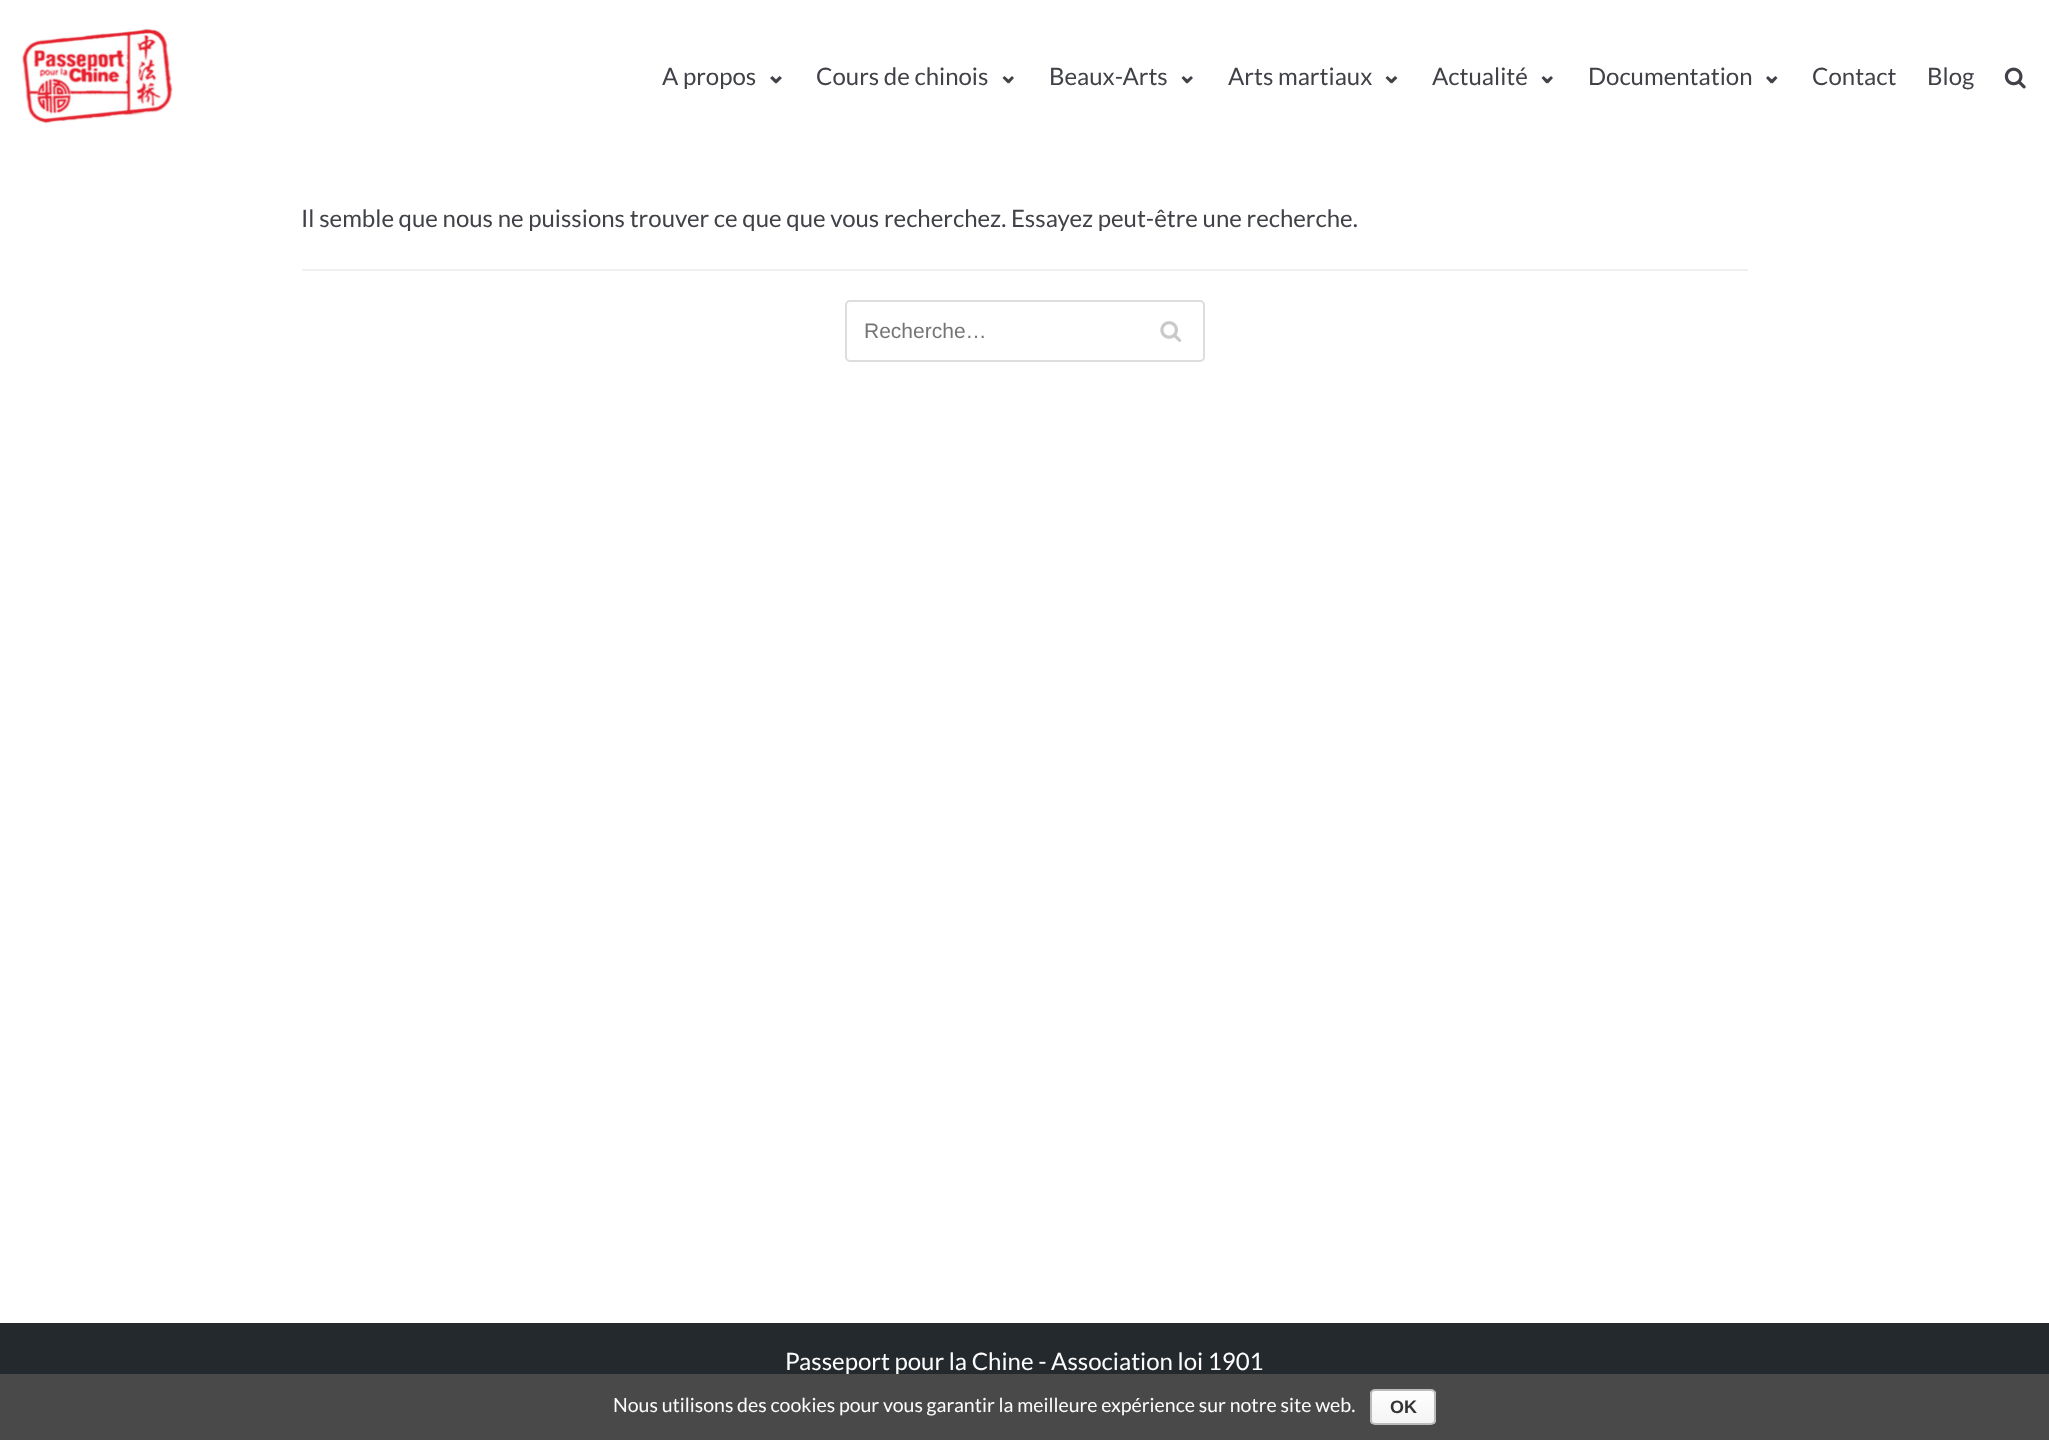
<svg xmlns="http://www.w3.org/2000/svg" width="2049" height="1440">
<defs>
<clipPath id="clip1"><rect x="1370" y="1389" width="66" height="36" rx="5"/></clipPath>
<linearGradient id="g1" gradientUnits="userSpaceOnUse" x1="1403" y1="1391" x2="1403" y2="1424"><stop offset="0" stop-color="#fefefe"/><stop offset="1" stop-color="#f4f4f4"/></linearGradient>
</defs>
<rect width="100%" height="100%" fill="#fff"/>
<image x="22" y="28" width="151" height="96" href="media/1.png"/>
<text x="662" y="85" style="font-family:Lato;font-size:24px;fill:#404248">A propos</text>
<path d="M782 78l-5.5 5.5l-2-2.5l5-5z" fill="#404248"/>
<path d="M777.5 81l-2 2.5l-5.5-5.5l2.5-2z" fill="#404248"/>
<text x="816" y="85" style="font-family:Lato;font-size:24px;fill:#404248">Cours de chinois</text>
<path d="M1014 78l-5 5.5l-2-2.5l5-5z" fill="#404248"/>
<path d="M1010 81l-2 2.5l-5.5-5.5l2-2z" fill="#404248"/>
<text x="1049" y="85" style="font-family:Lato;font-size:24px;fill:#404248">Beaux-Arts</text>
<path d="M1193 78l-5.5 5.5l-2-2.5l5.5-5z" fill="#404248"/>
<path d="M1189 81l-2.5 2.5l-5-5.5l2-2z" fill="#404248"/>
<text x="1228" y="85" style="font-family:Lato;font-size:24px;fill:#404248">Arts martiaux</text>
<path d="M1397.5 78l-5.5 5.5l-2-2.5l5-5z" fill="#404248"/>
<path d="M1393 81l-2 2.5l-5.5-5.5l2-2z" fill="#404248"/>
<text x="1432" y="85" style="font-family:Lato;font-size:24px;fill:#404248">Actualité</text>
<path d="M1553 78l-5 5.5l-2.5-2.5l5.5-5z" fill="#404248"/>
<path d="M1549 81l-2.5 2.5l-5-5.5l2-2z" fill="#404248"/>
<text x="1588" y="85" style="font-family:Lato;font-size:24px;fill:#404248">Documentation</text>
<path d="M1777.5 78l-5 5.5l-2.5-2.5l5.5-5z" fill="#404248"/>
<path d="M1773.5 81l-2.5 2.5l-5-5.5l2-2z" fill="#404248"/>
<text x="1812" y="85" style="font-family:Lato;font-size:24px;fill:#404248">Contact</text>
<text x="1927" y="85" style="font-family:Lato;font-size:24px;fill:#404248">Blog</text>
<image x="2004" y="67" width="22" height="22" href="media/2.png"/>
<text x="301" y="227" style="font-family:Lato;font-size:24px;fill:#404248">Il semble que nous ne puissions trouver ce que que vous recherchez. Essayez peut-être une recherche.</text>
<rect x="302" y="269" width="1446" height="2" fill="#f0f0f0"/>
<rect x="846" y="301" width="358" height="60" rx="4" fill="none" stroke="#ddd" stroke-width="2"/>
<text x="864" y="338" style="font-family:Liberation Sans;font-size:21px;fill:#757575">Recherche…</text>
<image x="1160" y="321" width="22" height="21" href="media/3.png"/>
<rect y="1323" width="2049" height="51" fill="#24292e"/>
<text x="785" y="1370" style="font-family:Lato;font-size:24px;fill:#fdfdfd">Passeport pour la Chine - Association loi 1901</text>
<rect y="1374" width="2049" height="66" fill="#494949"/>
<text x="613" y="1412" style="font-family:Lato;font-size:19.5px;fill:#fdfdfd">Nous utilisons des cookies pour vous garantir la meilleure expérience sur notre site web.</text>
<g clip-path="url(#clip1)">
<rect x="1370" y="1391" width="66" height="33" fill="url(#g1)"/>
</g>
<rect x="1371" y="1390" width="64" height="34" rx="4" fill="none" stroke="#bbb" stroke-width="2"/>
<text x="1390" y="1413" style="font-family:Liberation Sans;font-size:18px;font-weight:bold;fill:#333">OK</text>
</svg>
